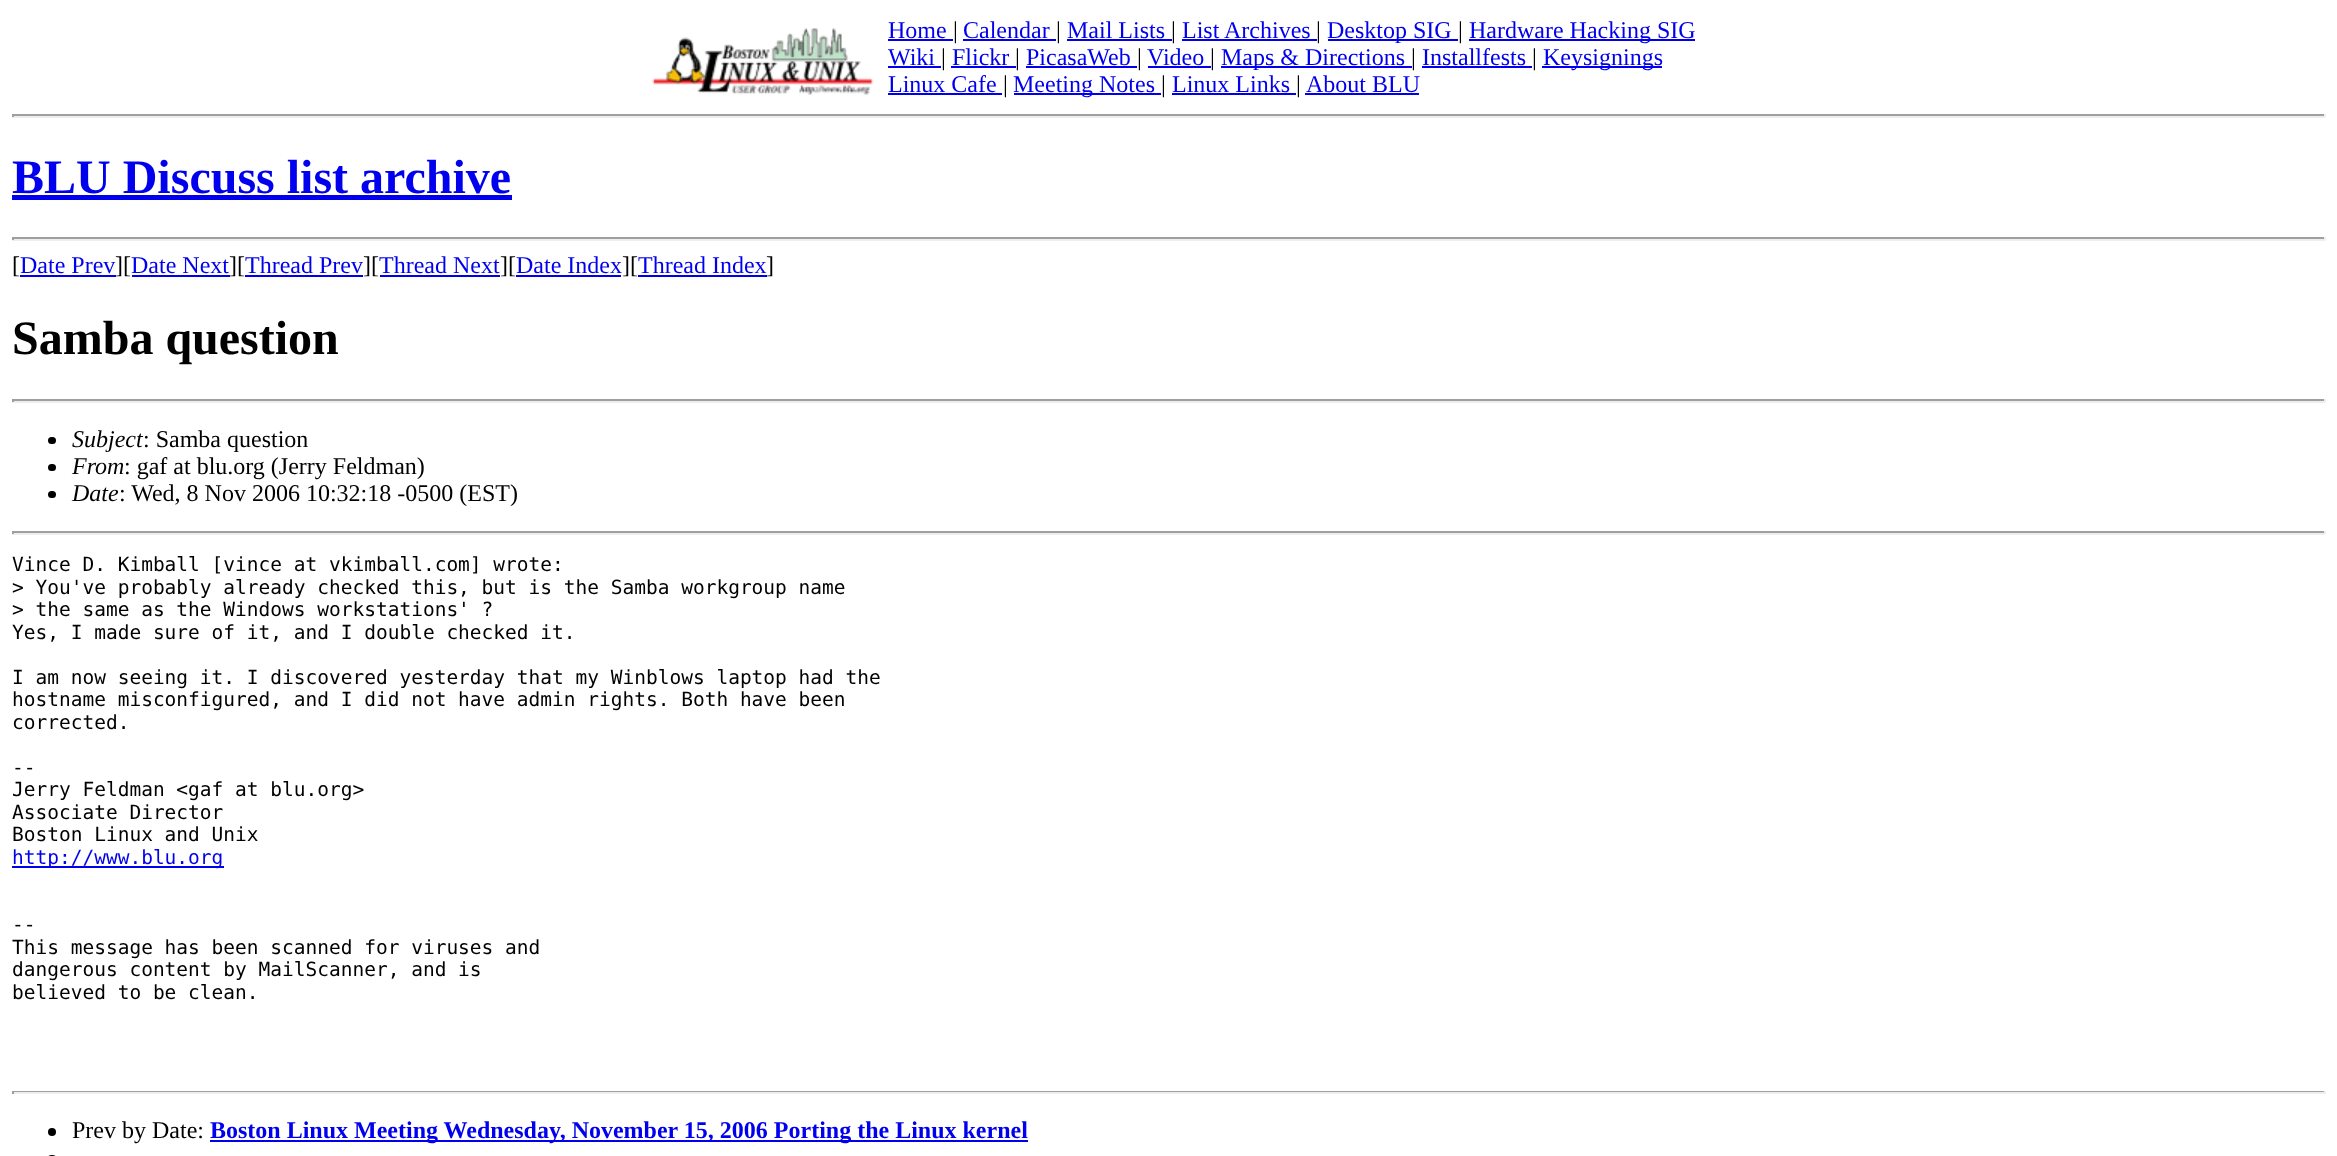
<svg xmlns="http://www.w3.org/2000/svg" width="2337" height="1156">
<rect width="100%" height="100%" fill="#fff"/>
<image x="652" y="28" width="222" height="67" href="media/1.png"/>
<text x="888" y="38" style="font-family:Liberation Serif;font-size:24px;fill:#00e">Home</text>
<rect x="888" y="39" width="65" height="2" fill="#00e"/>
<text x="953" y="38" style="font-family:Liberation Serif;font-size:24px;fill:#000">|</text>
<text x="963" y="38" style="font-family:Liberation Serif;font-size:24px;fill:#00e">Calendar</text>
<rect x="963" y="39" width="93" height="2" fill="#00e"/>
<text x="1056" y="38" style="font-family:Liberation Serif;font-size:24px;fill:#000">|</text>
<text x="1067" y="38" style="font-family:Liberation Serif;font-size:24px;fill:#00e">Mail Lists</text>
<rect x="1067" y="39" width="105" height="2" fill="#00e"/>
<text x="1171" y="38" style="font-family:Liberation Serif;font-size:24px;fill:#000">|</text>
<text x="1182" y="38" style="font-family:Liberation Serif;font-size:24px;fill:#00e">List Archives</text>
<rect x="1182" y="39" width="135" height="2" fill="#00e"/>
<text x="1316" y="38" style="font-family:Liberation Serif;font-size:24px;fill:#000">|</text>
<rect x="1328" y="39" width="130" height="2" fill="#00e"/>
<text x="1327" y="38" style="font-family:Liberation Serif;font-size:24px;fill:#00e">Desktop SIG</text>
<text x="1458" y="38" style="font-family:Liberation Serif;font-size:24px;fill:#000">|</text>
<rect x="1469" y="39" width="226" height="2" fill="#00e"/>
<text x="1469" y="38" style="font-family:Liberation Serif;font-size:24px;fill:#00e">Hardware Hacking SIG</text>
<text x="888" y="65" style="font-family:Liberation Serif;font-size:24px;fill:#00e">Wiki</text>
<rect x="888" y="66" width="53" height="2" fill="#00e"/>
<text x="941" y="65" style="font-family:Liberation Serif;font-size:24px;fill:#000">|</text>
<text x="952" y="65" style="font-family:Liberation Serif;font-size:24px;fill:#00e">Flickr</text>
<rect x="951" y="66" width="65" height="2" fill="#00e"/>
<text x="1015" y="65" style="font-family:Liberation Serif;font-size:24px;fill:#000">|</text>
<text x="1026" y="65" style="font-family:Liberation Serif;font-size:24px;fill:#00e">PicasaWeb</text>
<rect x="1026" y="66" width="111" height="2" fill="#00e"/>
<text x="1137" y="65" style="font-family:Liberation Serif;font-size:24px;fill:#000">|</text>
<text x="1147" y="65" style="font-family:Liberation Serif;font-size:24px;fill:#00e">Video</text>
<rect x="1148" y="66" width="63" height="2" fill="#00e"/>
<text x="1210" y="65" style="font-family:Liberation Serif;font-size:24px;fill:#000">|</text>
<rect x="1221" y="66" width="191" height="2" fill="#00e"/>
<text x="1221" y="65" style="font-family:Liberation Serif;font-size:24px;fill:#00e">Maps &amp; Directions</text>
<text x="1411" y="65" style="font-family:Liberation Serif;font-size:24px;fill:#000">|</text>
<text x="1422" y="65" style="font-family:Liberation Serif;font-size:24px;fill:#00e">Installfests</text>
<rect x="1422" y="66" width="110" height="2" fill="#00e"/>
<text x="1532" y="65" style="font-family:Liberation Serif;font-size:24px;fill:#000">|</text>
<rect x="1542" y="66" width="120" height="2" fill="#00e"/>
<text x="1543" y="65" style="font-family:Liberation Serif;font-size:24px;fill:#00e">Keysignings</text>
<text x="888" y="92" style="font-family:Liberation Serif;font-size:24px;fill:#00e">Linux Cafe</text>
<rect x="888" y="93" width="114" height="2" fill="#00e"/>
<text x="1003" y="92" style="font-family:Liberation Serif;font-size:24px;fill:#000">|</text>
<rect x="1014" y="93" width="147" height="2" fill="#00e"/>
<text x="1013" y="92" style="font-family:Liberation Serif;font-size:24px;fill:#00e">Meeting Notes</text>
<text x="1161" y="92" style="font-family:Liberation Serif;font-size:24px;fill:#000">|</text>
<text x="1172" y="92" style="font-family:Liberation Serif;font-size:24px;fill:#00e">Linux Links</text>
<rect x="1172" y="93" width="124" height="2" fill="#00e"/>
<text x="1296" y="92" style="font-family:Liberation Serif;font-size:24px;fill:#000">|</text>
<text x="1306" y="92" style="font-family:Liberation Serif;font-size:24px;fill:#00e">About BLU</text>
<rect x="1305" y="93" width="114" height="2" fill="#00e"/>
<rect x="12" y="114" width="2313" height="2" fill="#9f9f9f"/>
<rect x="2324" y="114" width="2" height="3" fill="#eee"/>
<rect x="12" y="116" width="2313" height="2" fill="#eee"/>
<rect x="12" y="114" width="2" height="3" fill="#9f9f9f"/>
<text x="12" y="193" style="font-family:Liberation Serif;font-size:48px;font-weight:bold;fill:#00e">BLU Discuss list archive</text>
<rect x="12" y="195" width="500" height="5" fill="#00e"/>
<rect x="12" y="237" width="2313" height="2" fill="#9f9f9f"/>
<rect x="2324" y="237" width="2" height="3" fill="#eee"/>
<rect x="12" y="239" width="2313" height="2" fill="#eee"/>
<rect x="12" y="237" width="2" height="3" fill="#9f9f9f"/>
<text x="12" y="273" style="font-family:Liberation Serif;font-size:24px;fill:#000">[</text>
<text x="20" y="273" style="font-family:Liberation Serif;font-size:24px;fill:#00e">Date Prev</text>
<rect x="20" y="275" width="96" height="2" fill="#00e"/>
<text x="115" y="273" style="font-family:Liberation Serif;font-size:24px;fill:#000">][</text>
<text x="131" y="273" style="font-family:Liberation Serif;font-size:24px;fill:#00e">Date Next</text>
<rect x="132" y="275" width="98" height="2" fill="#00e"/>
<text x="229" y="273" style="font-family:Liberation Serif;font-size:24px;fill:#000">][</text>
<text x="245" y="273" style="font-family:Liberation Serif;font-size:24px;fill:#00e">Thread Prev</text>
<rect x="245" y="275" width="118" height="2" fill="#00e"/>
<text x="363" y="273" style="font-family:Liberation Serif;font-size:24px;fill:#000">][</text>
<text x="379" y="273" style="font-family:Liberation Serif;font-size:24px;fill:#00e">Thread Next</text>
<rect x="380" y="275" width="120" height="2" fill="#00e"/>
<text x="500" y="273" style="font-family:Liberation Serif;font-size:24px;fill:#000">][</text>
<text x="516" y="273" style="font-family:Liberation Serif;font-size:24px;fill:#00e">Date Index</text>
<rect x="516" y="275" width="105" height="2" fill="#00e"/>
<text x="622" y="273" style="font-family:Liberation Serif;font-size:24px;fill:#000">][</text>
<text x="638" y="273" style="font-family:Liberation Serif;font-size:24px;fill:#00e">Thread Index</text>
<rect x="638" y="275" width="129" height="2" fill="#00e"/>
<text x="766" y="273" style="font-family:Liberation Serif;font-size:24px;fill:#000">]</text>
<text x="12" y="354" style="font-family:Liberation Serif;font-size:48px;font-weight:bold;fill:#000">Samba question</text>
<rect x="12" y="399" width="2313" height="2" fill="#9f9f9f"/>
<rect x="2324" y="399" width="2" height="3" fill="#eee"/>
<rect x="12" y="401" width="2313" height="2" fill="#eee"/>
<rect x="12" y="399" width="2" height="3" fill="#9f9f9f"/>
<rect x="48" y="437" width="8" height="7" rx="3.5" fill="#000"/>
<text x="72" y="447" style="font-family:Liberation Serif;font-size:24px;font-style:italic;fill:#000">Subject</text>
<text x="143" y="447" style="font-family:Liberation Serif;font-size:24px;fill:#000">: Samba question</text>
<rect x="48" y="464" width="8" height="7" rx="3.5" fill="#000"/>
<text x="72" y="474" style="font-family:Liberation Serif;font-size:24px;font-style:italic;fill:#000">From</text>
<text x="124" y="474" style="font-family:Liberation Serif;font-size:24px;fill:#000">: gaf at blu.org (Jerry Feldman)</text>
<rect x="48" y="491" width="8" height="7" rx="3.5" fill="#000"/>
<text x="72" y="501" style="font-family:Liberation Serif;font-size:24px;font-style:italic;fill:#000">Date</text>
<text x="119" y="501" style="font-family:Liberation Serif;font-size:24px;fill:#000">: Wed, 8 Nov 2006 10:32:18 -0500 (EST)</text>
<rect x="12" y="531" width="2313" height="2" fill="#9f9f9f"/>
<rect x="2324" y="531" width="2" height="3" fill="#eee"/>
<rect x="12" y="533" width="2313" height="2" fill="#eee"/>
<rect x="12" y="531" width="2" height="3" fill="#9f9f9f"/>
<text x="12" y="571" style="font-family:DejaVu Sans Mono;font-size:19.5px;fill:#000">Vince D. Kimball [vince at vkimball.com] wrote:</text>
<text x="12" y="594" style="font-family:DejaVu Sans Mono;font-size:19.5px;fill:#000">&gt; You've probably already checked this, but is the Samba workgroup name</text>
<text x="12" y="616" style="font-family:DejaVu Sans Mono;font-size:19.5px;fill:#000">&gt; the same as the Windows workstations' ?</text>
<text x="12" y="639" style="font-family:DejaVu Sans Mono;font-size:19.5px;fill:#000">Yes, I made sure of it, and I double checked it.</text>
<text x="12" y="684" style="font-family:DejaVu Sans Mono;font-size:19.5px;fill:#000">I am now seeing it. I discovered yesterday that my Winblows laptop had the</text>
<text x="12" y="706" style="font-family:DejaVu Sans Mono;font-size:19.5px;fill:#000">hostname misconfigured, and I did not have admin rights. Both have been</text>
<text x="12" y="729" style="font-family:DejaVu Sans Mono;font-size:19.5px;fill:#000">corrected.</text>
<text x="12" y="774" style="font-family:DejaVu Sans Mono;font-size:19.5px;fill:#000">--</text>
<text x="12" y="796" style="font-family:DejaVu Sans Mono;font-size:19.5px;fill:#000">Jerry Feldman &lt;gaf at blu.org&gt;</text>
<text x="12" y="819" style="font-family:DejaVu Sans Mono;font-size:19.5px;fill:#000">Associate Director</text>
<text x="12" y="841" style="font-family:DejaVu Sans Mono;font-size:19.5px;fill:#000">Boston Linux and Unix</text>
<rect x="12" y="866" width="212" height="2" fill="#00e"/>
<text x="12" y="864" style="font-family:DejaVu Sans Mono;font-size:19.5px;fill:#00e">http://www.blu.org</text>
<text x="12" y="931" style="font-family:DejaVu Sans Mono;font-size:19.5px;fill:#000">--</text>
<text x="12" y="954" style="font-family:DejaVu Sans Mono;font-size:19.5px;fill:#000">This message has been scanned for viruses and</text>
<text x="12" y="976" style="font-family:DejaVu Sans Mono;font-size:19.5px;fill:#000">dangerous content by MailScanner, and is</text>
<text x="12" y="999" style="font-family:DejaVu Sans Mono;font-size:19.5px;fill:#000">believed to be clean.</text>
<rect x="12" y="1091" width="2313" height="1" fill="#9f9f9f"/>
<rect x="2324" y="1091" width="2" height="3" fill="#eee"/>
<rect x="12" y="1092" width="2313" height="2" fill="#eee"/>
<rect x="12" y="1091" width="2" height="3" fill="#9f9f9f"/>
<circle cx="52" cy="1132" r="4" fill="#000"/>
<text x="72" y="1138" style="font-family:Liberation Serif;font-size:24px;fill:#000">Prev by Date:</text>
<rect x="210" y="1140" width="818" height="2" fill="#00e"/>
<text x="210" y="1138" style="font-family:Liberation Serif;font-size:24px;font-weight:bold;fill:#00e">Boston Linux Meeting Wednesday, November 15, 2006 Porting the Linux kernel</text>
<rect x="48" y="1155" width="8" height="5" rx="4" fill="#000"/>
</svg>
